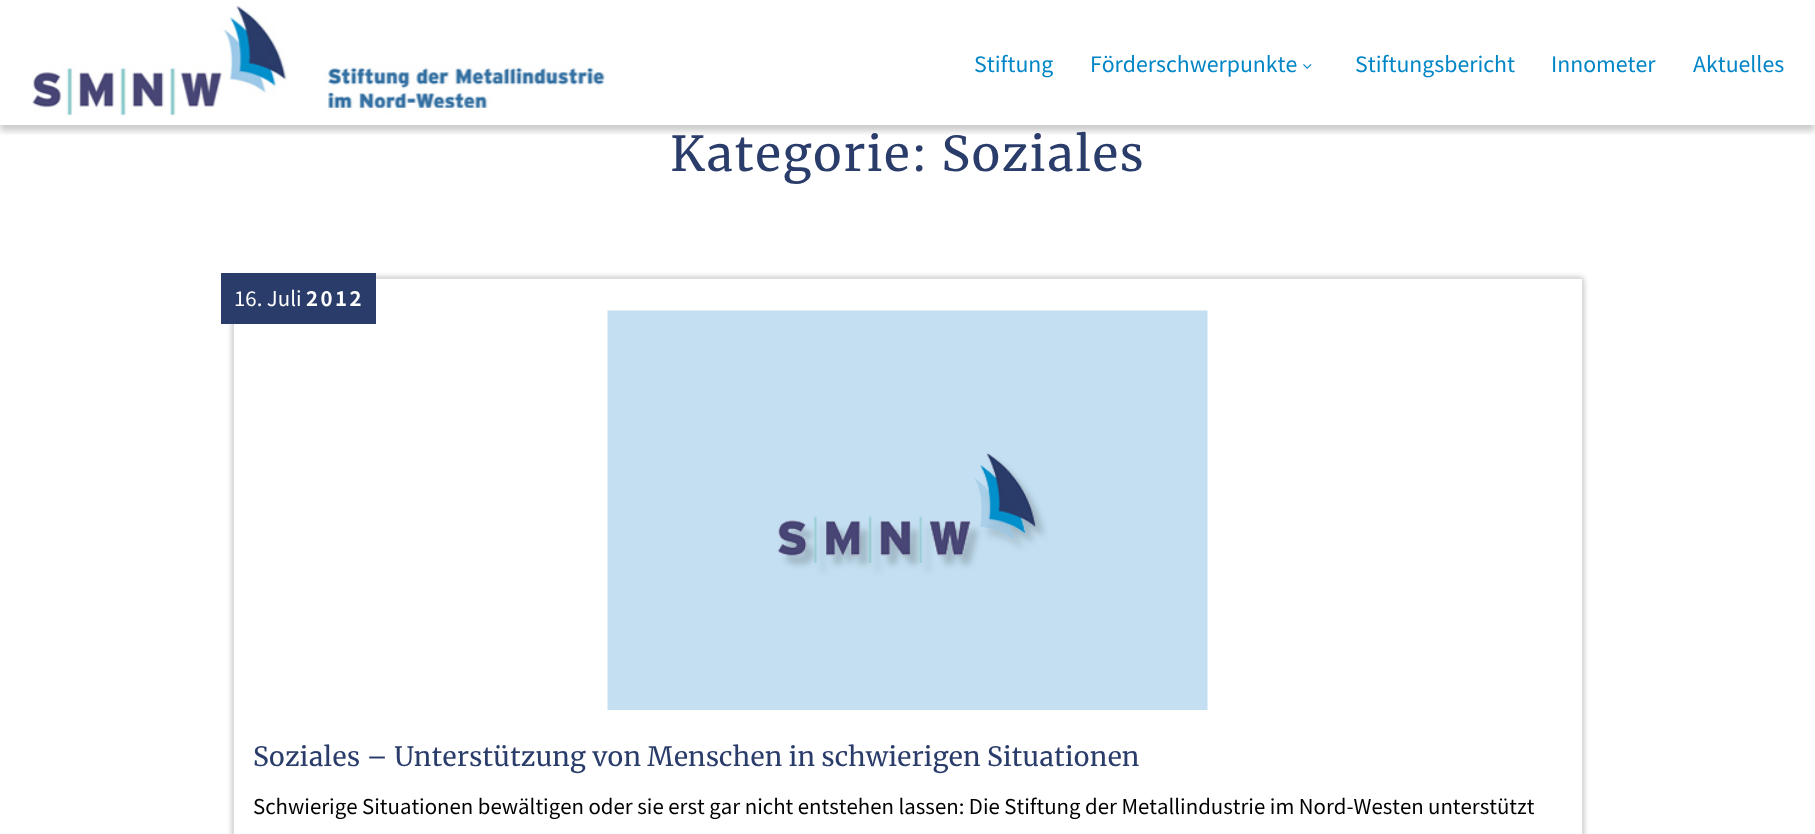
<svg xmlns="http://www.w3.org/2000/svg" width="1815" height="834">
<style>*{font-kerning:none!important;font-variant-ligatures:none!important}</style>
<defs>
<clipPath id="clip1"><rect x="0" y="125" width="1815" height="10"/></clipPath>
<clipPath id="clip2"><path d="M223 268h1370v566h-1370zm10 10h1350v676h-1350z" clip-rule="evenodd"/></clipPath>
</defs>
<rect width="100%" height="100%" fill="#fff"/>
<g clip-path="url(#clip1)">
<rect y="6" width="1815" height="125" fill="#00000033" filter="blur(3px)"/>
</g>
<image x="32" y="6" width="573" height="110" href="media/1.png"/>
<text x="974" y="72" style="font-family:Noto Sans JP;font-size:21.25px;fill:#0085c6">Stiftung</text>
<text x="1090" y="72" style="font-family:Noto Sans JP;font-size:21.25px;fill:#0085c6">Förderschwerpunkte</text>
<image x="1303" y="64" width="9" height="5" href="media/2.png"/>
<text x="1355" y="72" style="font-family:Noto Sans JP;font-size:21.25px;fill:#0085c6">Stiftungsbericht</text>
<text x="1551" y="72" style="font-family:Noto Sans JP;font-size:21.25px;fill:#0085c6">Innometer</text>
<text x="1693" y="72" style="font-family:Noto Sans JP;font-size:21.25px;fill:#0085c6">Aktuelles</text>
<text x="670" y="171" style="font-family:Merriweather;font-size:48px;letter-spacing:1.25px;fill:#2a3c6a">Kategorie: Soziales</text>
<g clip-path="url(#clip2)">
<rect x="233" y="278" width="1350" height="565" fill="#0000004d" filter="blur(3px)"/>
</g>
<rect x="233.5" y="278.5" width="1349" height="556" fill="none" stroke="#ddd"/>
<rect x="221" y="273" width="155" height="51" fill="#2a3c6a"/>
<text x="234" y="306" style="font-family:Noto Sans JP;font-size:20.4px;fill:#fff">16. Juli</text>
<text x="306" y="306" style="font-family:Noto Sans JP;font-size:20.4px;font-weight:bold;letter-spacing:2.5px;fill:#fff">2012</text>
<image x="607" y="310" width="601" height="400" href="media/3.png"/>
<text x="253" y="766" style="font-family:Merriweather;font-size:26.55px;fill:#2a3c6a">Soziales – Unterstützung von Menschen in schwierigen Situationen</text>
<text x="253" y="814" style="font-family:Noto Sans JP;font-size:20.4px;fill:#000">Schwierige Situationen bewältigen oder sie erst gar nicht entstehen lassen: Die Stiftung der Metallindustrie im Nord-Westen</text>
<text x="1428" y="814" style="font-family:Noto Sans JP;font-size:20.4px;fill:#000">unterstützt</text>
</svg>
